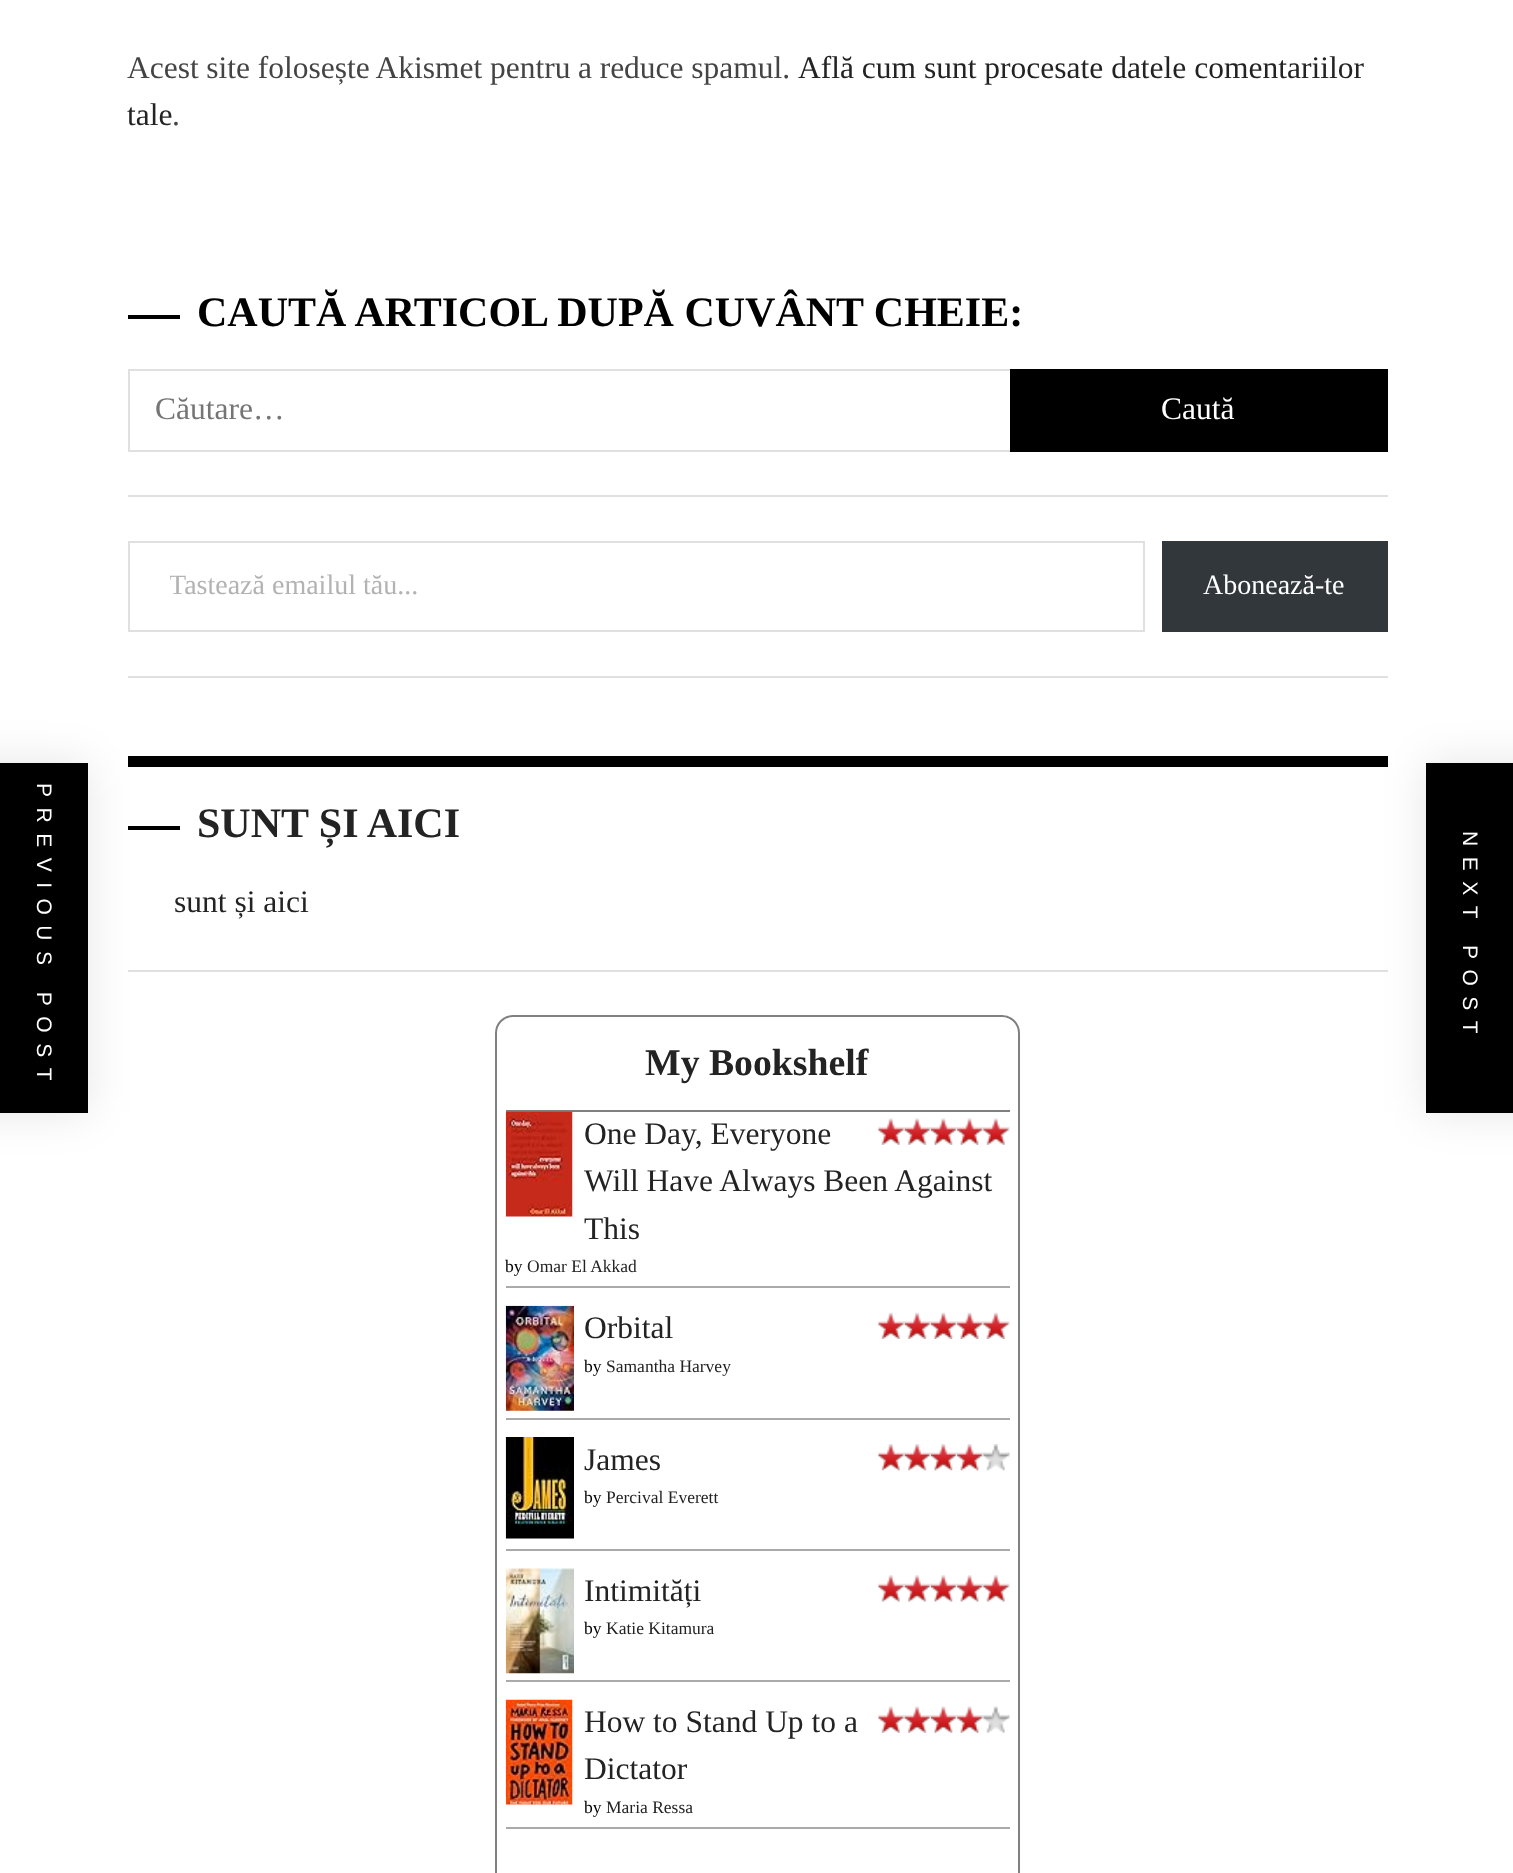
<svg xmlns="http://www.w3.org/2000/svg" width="1513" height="1873">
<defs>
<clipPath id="clip1"><rect x="170" y="571" width="933" height="31"/></clipPath>
</defs>
<rect width="100%" height="100%" fill="#fff"/>
<text x="127" y="78" word-spacing="-0.25" style="font-family:Liberation Serif;font-size:31.5px;fill:#444">Acest site folosește Akismet pentru a reduce spamul.</text>
<text x="798" y="78" style="font-family:Liberation Serif;font-size:31.5px;fill:#232323">Află cum sunt procesate datele comentariilor</text>
<text x="127" y="125" style="font-family:Liberation Serif;font-size:31.5px;fill:#232323">tale</text>
<text x="172" y="125" style="font-family:Liberation Serif;font-size:31.5px;fill:#444">.</text>
<rect x="128" y="970" width="1260" height="2" fill="#e0e0e0"/>
<rect x="128" y="756" width="1260" height="11" fill="#000"/>
<rect x="128" y="826" width="52" height="4" fill="#000"/>
<rect x="-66" y="763" width="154" height="350" fill="#0000001a" filter="blur(22px)"/>
<rect y="763" width="88" height="350" fill="#000"/>
<text x="37" y="783" transform="rotate(90 37 783)" style="font-family:Liberation Sans;font-size:21px;letter-spacing:10.5px;fill:#fff">PREVIOUS POST</text>
<rect x="1426" y="763" width="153" height="350" fill="#0000001a" filter="blur(22px)"/>
<rect x="1426" y="763" width="87" height="350" fill="#000"/>
<text x="1463" y="831" transform="rotate(90 1463 831)" style="font-family:Liberation Sans;font-size:21px;letter-spacing:10.5px;fill:#fff">NEXT POST</text>
<rect x="128" y="495" width="1260" height="2" fill="#e0e0e0"/>
<rect x="128" y="315" width="52" height="4" fill="#000"/>
<text x="197" y="326" style="font-family:Liberation Serif;font-size:42px;font-weight:bold;fill:#000">CAUTĂ ARTICOL DUPĂ CUVÂNT CHEIE:</text>
<rect x="128" y="369" width="882" height="2" fill="#e0e0e0"/>
<rect x="128" y="450" width="882" height="2" fill="#e0e0e0"/>
<rect x="128" y="369" width="2" height="83" fill="#e0e0e0"/>
<text x="155" y="419" style="font-family:Liberation Serif;font-size:31.5px;fill:#757575">Căutare…</text>
<rect x="1010" y="369" width="378" height="83" fill="#000"/>
<text x="1161" y="419" style="font-family:Liberation Serif;font-size:31.5px;fill:#fff">Caută</text>
<rect x="128" y="676" width="1260" height="2" fill="#e0e0e0"/>
<rect x="129" y="542" width="1015" height="89" fill="none" stroke="#e0e0e0" stroke-width="2"/>
<g clip-path="url(#clip1)">
<text x="169" y="594" style="font-family:Liberation Serif;font-size:28px;fill:#b3b3b3">Tastează emailul tău...</text>
</g>
<rect x="1162" y="541" width="226" height="91" fill="#32373c"/>
<text x="1203" y="594" style="font-family:Liberation Serif;font-size:28px;fill:#fff">Abonează-te</text>
<text x="197" y="837" style="font-family:Liberation Serif;font-size:42px;font-weight:bold;fill:#232323">SUNT ȘI AICI</text>
<text x="174" y="912" style="font-family:Liberation Serif;font-size:31.5px;fill:#232323">sunt și aici</text>
<rect x="496" y="1016" width="523" height="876" rx="17" fill="none" stroke="#808080" stroke-width="2"/>
<rect x="506" y="1110" width="504" height="2" fill="#808080"/>
<text x="645" y="1075" style="font-family:Liberation Serif;font-size:37.75px;font-weight:bold;fill:#232323">My Bookshelf</text>
<rect x="506" y="1286" width="504" height="2" fill="#aaa"/>
<image x="505" y="1111" width="68" height="106" href="media/1.png"/>
<image x="878" y="1118" width="27" height="27" href="media/2.png"/>
<image x="904" y="1118" width="27" height="27" href="media/3.png"/>
<image x="931" y="1118" width="27" height="27" href="media/4.png"/>
<image x="957" y="1118" width="27" height="27" href="media/5.png"/>
<image x="983" y="1118" width="27" height="27" href="media/6.png"/>
<text x="584" y="1144" style="font-family:Liberation Serif;font-size:31.5px;fill:#232323">One Day, Everyone</text>
<text x="584" y="1191" style="font-family:Liberation Serif;font-size:31.5px;fill:#232323">Will Have Always Been Against</text>
<text x="584" y="1239" style="font-family:Liberation Serif;font-size:31.5px;fill:#232323">This</text>
<text x="505" y="1272" style="font-family:Liberation Serif;font-size:17.5px;fill:#000">by</text>
<text x="527" y="1272" style="font-family:Liberation Serif;font-size:17.5px;fill:#232323">Omar El Akkad</text>
<rect x="506" y="1418" width="504" height="2" fill="#aaa"/>
<image x="505" y="1305" width="69" height="106" href="media/7.png"/>
<text x="584" y="1338" style="font-family:Liberation Serif;font-size:31.5px;fill:#232323">Orbital</text>
<image x="878" y="1312" width="27" height="27" href="media/8.png"/>
<image x="904" y="1312" width="27" height="27" href="media/9.png"/>
<image x="931" y="1312" width="27" height="27" href="media/10.png"/>
<image x="957" y="1312" width="27" height="27" href="media/11.png"/>
<image x="983" y="1312" width="27" height="27" href="media/12.png"/>
<text x="584" y="1372" style="font-family:Liberation Serif;font-size:17.5px;fill:#000">by</text>
<text x="606" y="1372" style="font-family:Liberation Serif;font-size:17.5px;fill:#232323">Samantha Harvey</text>
<rect x="506" y="1549" width="504" height="2" fill="#aaa"/>
<image x="505" y="1437" width="69" height="102" href="media/13.png"/>
<text x="584" y="1470" style="font-family:Liberation Serif;font-size:31.5px;fill:#232323">James</text>
<image x="878" y="1444" width="27" height="27" href="media/14.png"/>
<image x="904" y="1444" width="27" height="27" href="media/15.png"/>
<image x="931" y="1444" width="27" height="27" href="media/16.png"/>
<image x="957" y="1444" width="27" height="27" href="media/17.png"/>
<image x="983" y="1444" width="27" height="27" href="media/18.png"/>
<text x="584" y="1503" style="font-family:Liberation Serif;font-size:17.5px;fill:#000">by</text>
<text x="606" y="1503" style="font-family:Liberation Serif;font-size:17.5px;fill:#232323">Percival Everett</text>
<rect x="506" y="1680" width="504" height="2" fill="#aaa"/>
<image x="505" y="1568" width="69" height="106" href="media/19.png"/>
<text x="584" y="1601" style="font-family:Liberation Serif;font-size:31.5px;fill:#232323">Intimități</text>
<image x="878" y="1575" width="27" height="27" href="media/20.png"/>
<image x="904" y="1575" width="27" height="27" href="media/21.png"/>
<image x="931" y="1575" width="27" height="27" href="media/22.png"/>
<image x="957" y="1575" width="27" height="27" href="media/23.png"/>
<image x="983" y="1575" width="27" height="27" href="media/24.png"/>
<text x="584" y="1634" style="font-family:Liberation Serif;font-size:17.5px;fill:#000">by</text>
<text x="606" y="1634" style="font-family:Liberation Serif;font-size:17.5px;fill:#232323">Katie Kitamura</text>
<rect x="506" y="1827" width="504" height="2" fill="#aaa"/>
<image x="505" y="1699" width="68" height="106" href="media/25.png"/>
<text x="584" y="1732" style="font-family:Liberation Serif;font-size:31.5px;fill:#232323">How to Stand Up to a</text>
<text x="584" y="1779" style="font-family:Liberation Serif;font-size:31.5px;fill:#232323">Dictator</text>
<image x="878" y="1706" width="27" height="27" href="media/2.png"/>
<image x="904" y="1706" width="27" height="27" href="media/3.png"/>
<image x="931" y="1706" width="27" height="27" href="media/4.png"/>
<image x="957" y="1706" width="27" height="27" href="media/5.png"/>
<image x="983" y="1706" width="27" height="27" href="media/26.png"/>
<text x="584" y="1813" style="font-family:Liberation Serif;font-size:17.5px;fill:#000">by</text>
<text x="606" y="1813" style="font-family:Liberation Serif;font-size:17.5px;fill:#232323">Maria Ressa</text>
</svg>
